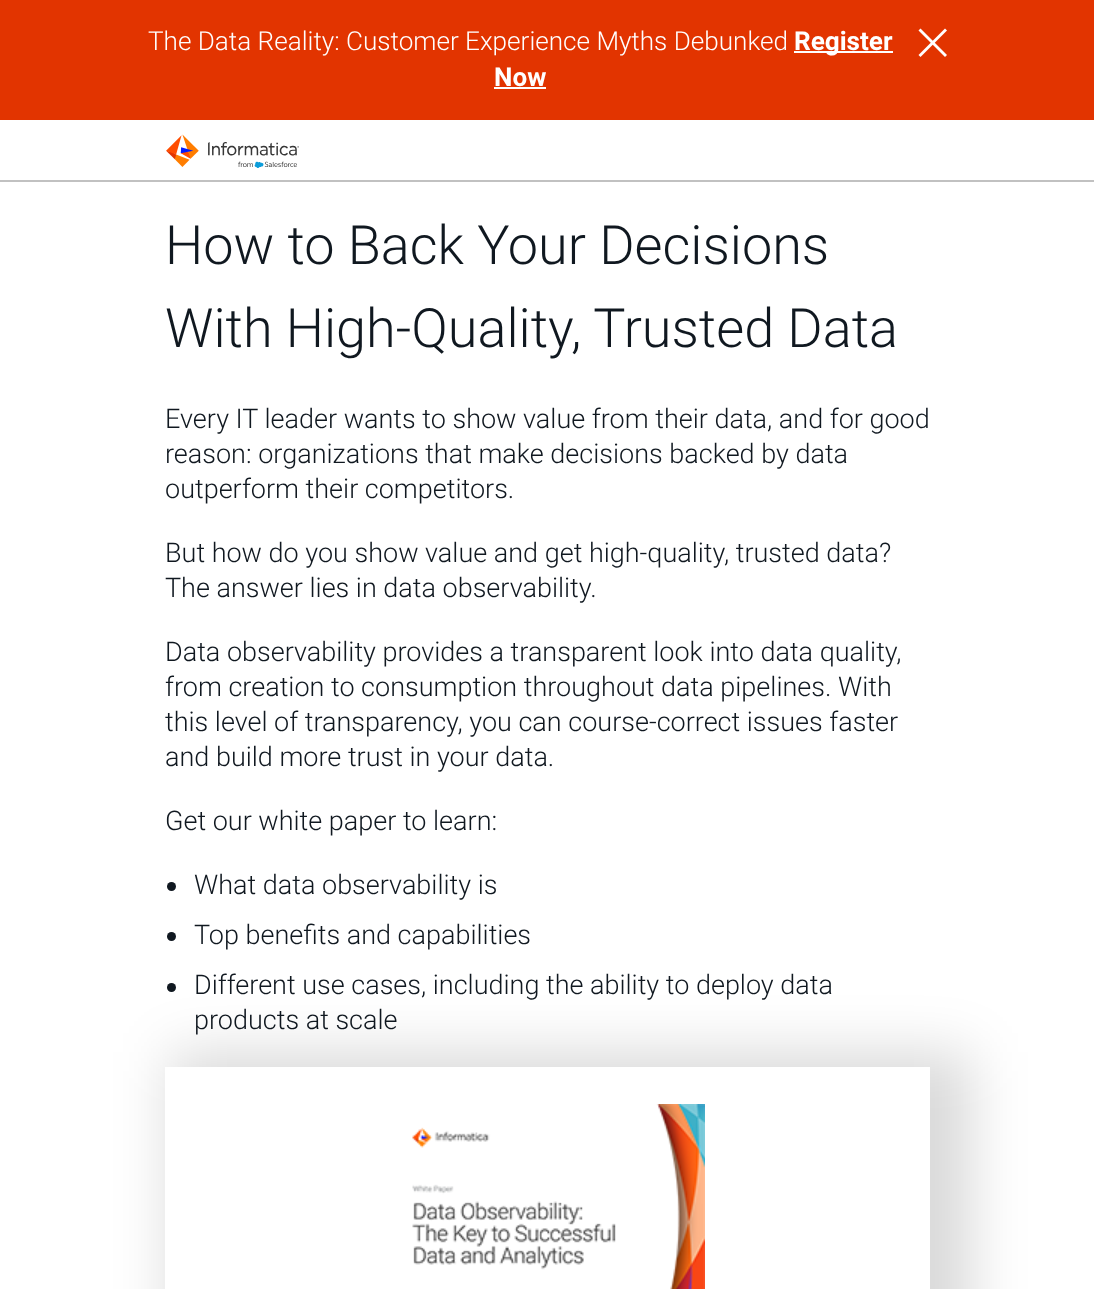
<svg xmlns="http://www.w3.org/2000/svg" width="1094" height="1289">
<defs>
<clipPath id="clip1"><path d="M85 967h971v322h-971zm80 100h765v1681h-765z" clip-rule="evenodd"/></clipPath>
</defs>
<rect width="100%" height="100%" fill="#fff"/>
<rect width="1094" height="120" fill="#e23400"/>
<text x="148" y="50" style="font-family:Roboto;font-size:26.1px;font-weight:300;fill:#fff">The Data Reality: Customer Experience Myths Debunked</text>
<rect x="794" y="51" width="99" height="2" fill="#fff"/>
<text x="794" y="50" style="font-family:Roboto;font-size:26.1px;font-weight:bold;fill:#fff">Register</text>
<text x="494" y="86" style="font-family:Roboto;font-size:26.1px;font-weight:bold;fill:#fff">Now</text>
<rect x="494" y="87" width="52" height="2" fill="#fff"/>
<path d="M945 28.5l2 2l-26.5 26.5l-2-2z" fill="#fff"/>
<path d="M918.5 30.5l2-2l26.5 26.5l-2 2z" fill="#fff"/>
<rect y="180" width="1094" height="2" fill="#c1c1c1"/>
<image x="166" y="134" width="133" height="34" href="media/1.png"/>
<text x="165" y="264" style="font-family:Roboto;font-size:54px;font-weight:300;fill:#101820">How to Back Your Decisions</text>
<text x="165" y="347" style="font-family:Roboto;font-size:54px;font-weight:300;fill:#101820">With High-Quality, Trusted Data</text>
<text x="165" y="428" style="font-family:Roboto;font-size:27px;font-weight:300;fill:#101820">Every IT leader wants to show value from their data, and for good</text>
<text x="165" y="463" style="font-family:Roboto;font-size:27px;font-weight:300;fill:#101820">reason: organizations that make decisions backed by data</text>
<text x="165" y="498" style="font-family:Roboto;font-size:27px;font-weight:300;fill:#101820">outperform their competitors.</text>
<text x="165" y="562" style="font-family:Roboto;font-size:27px;font-weight:300;fill:#101820">But how do you show value and get high-quality, trusted data?</text>
<text x="165" y="597" style="font-family:Roboto;font-size:27px;font-weight:300;fill:#101820">The answer lies in data observability.</text>
<text x="165" y="661" style="font-family:Roboto;font-size:27px;font-weight:300;fill:#101820">Data observability provides a transparent look into data quality,</text>
<text x="165" y="696" style="font-family:Roboto;font-size:27px;font-weight:300;fill:#101820">from creation to consumption throughout data pipelines. With</text>
<text x="165" y="731" style="font-family:Roboto;font-size:27px;font-weight:300;fill:#101820">this level of transparency, you can course-correct issues faster</text>
<text x="165" y="766" style="font-family:Roboto;font-size:27px;font-weight:300;fill:#101820">and build more trust in your data.</text>
<text x="165" y="830" style="font-family:Roboto;font-size:27px;font-weight:300;fill:#101820">Get our white paper to learn:</text>
<circle cx="171.5" cy="886.5" r="4.5" fill="#101820"/>
<text x="194" y="894" style="font-family:Roboto;font-size:27px;font-weight:300;fill:#101820">What data observability is</text>
<circle cx="171.5" cy="936.5" r="4.5" fill="#101820"/>
<text x="194" y="944" style="font-family:Roboto;font-size:27px;font-weight:300;fill:#101820">Top benefits and capabilities</text>
<circle cx="171.5" cy="987.5" r="4.5" fill="#101820"/>
<text x="194" y="994" style="font-family:Roboto;font-size:27px;font-weight:300;fill:#101820">Different use cases, including the ability to deploy data</text>
<text x="194" y="1029" style="font-family:Roboto;font-size:27px;font-weight:300;fill:#101820">products at scale</text>
<g clip-path="url(#clip1)">
<rect x="170" y="1052" width="801" height="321" fill="#00000026" filter="blur(28px)"/>
</g>
<image x="412" y="1104" width="293" height="185" href="media/2.png"/>
</svg>
